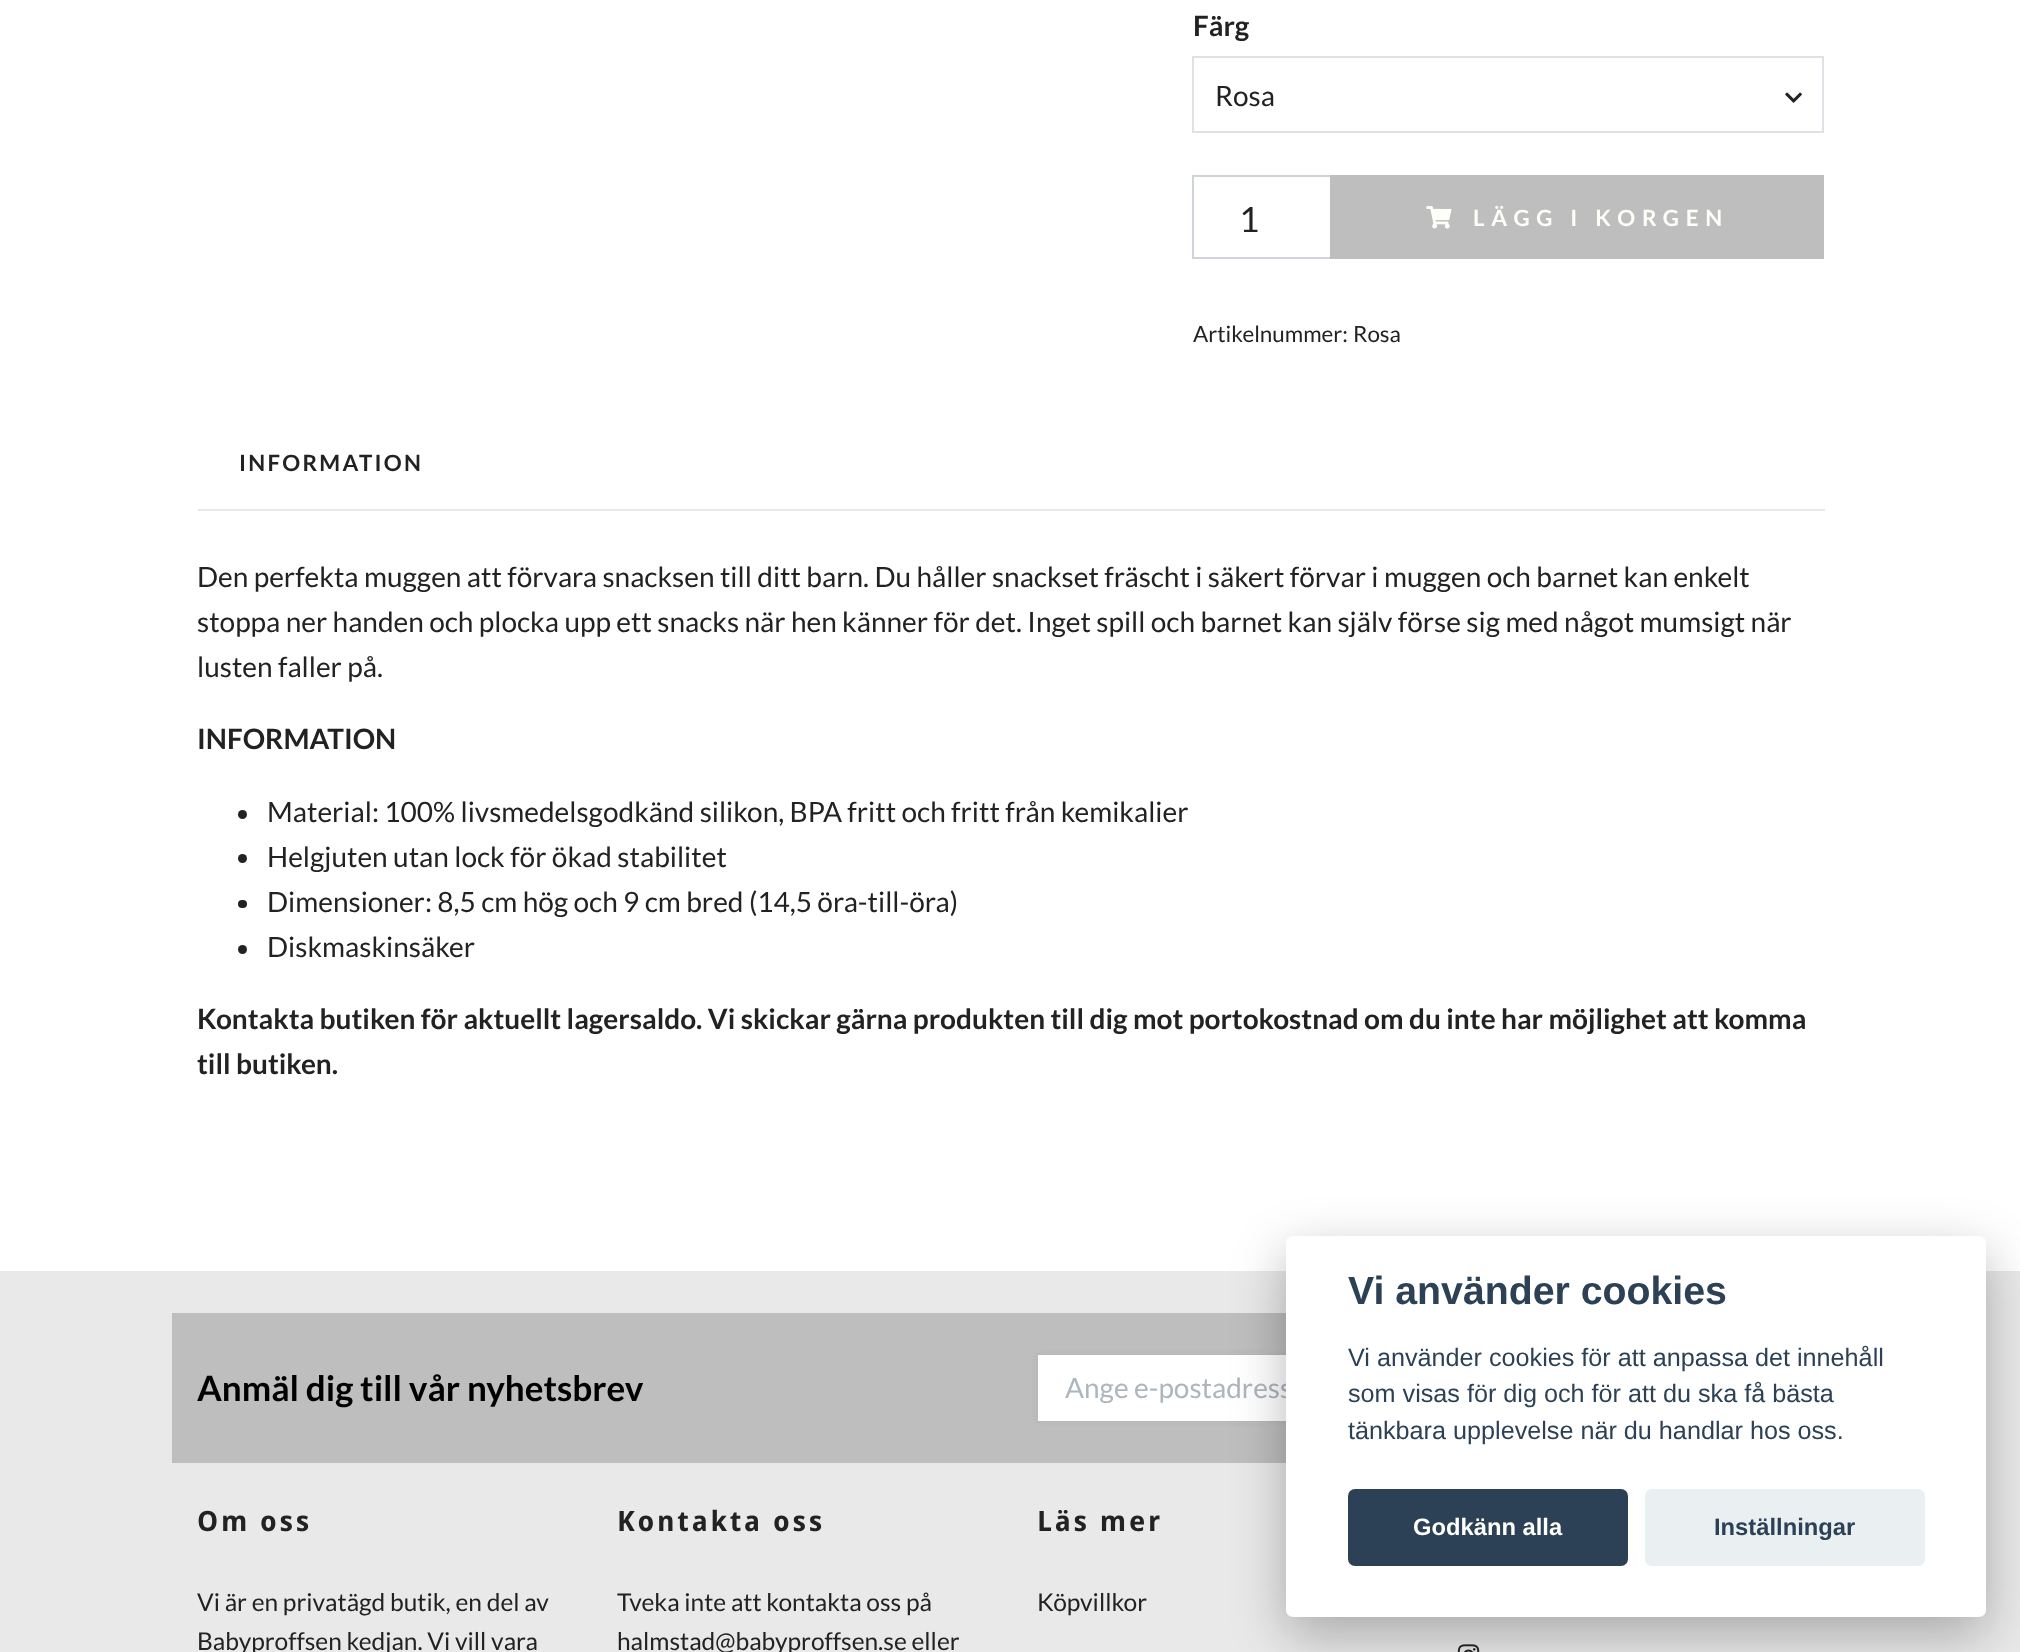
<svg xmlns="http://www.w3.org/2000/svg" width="2020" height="1652">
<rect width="100%" height="100%" fill="#fff"/>
<text x="1193" y="36" style="font-family:Lato;font-size:28px;font-weight:bold;fill:#222">Färg</text>
<rect x="1193" y="57" width="630" height="75" fill="none" stroke="#dee2e6" stroke-width="2"/>
<text x="1215" y="106" style="font-family:Lato;font-size:28px;fill:#222">Rosa</text>
<image x="1785" y="92" width="17" height="11" href="media/1.png"/>
<rect x="1193" y="176" width="138" height="82" fill="none" stroke="#ced4da" stroke-width="2"/>
<text x="1239" y="232" style="font-family:Lato;font-size:35px;fill:#222">1</text>
<rect x="1330" y="175" width="494" height="84" fill="#bdbebd"/>
<image x="1426" y="206" width="26" height="23" href="media/2.png"/>
<text x="1473" y="226" style="font-family:Lato;font-size:22.4px;font-weight:bold;letter-spacing:6.75px;fill:#fffffa">LÄGG I KORGEN</text>
<text x="1193" y="342" style="font-family:Lato;font-size:22.4px;fill:#222">Artikelnummer:</text>
<text x="1353" y="342" style="font-family:Lato;font-size:22.4px;fill:#222">Rosa</text>
<rect x="198" y="509" width="1627" height="2" fill="#e9e9e9"/>
<text x="239" y="471" style="font-family:Lato;font-size:22.4px;font-weight:bold;letter-spacing:2.25px;fill:#222">INFORMATION</text>
<text x="197" y="587" style="font-family:Lato;font-size:28px;fill:#222">Den perfekta muggen att förvara snacksen till ditt barn. Du håller snackset fräscht i säkert förvar i muggen och barnet kan enkelt</text>
<text x="197" y="632" style="font-family:Lato;font-size:28px;fill:#222">stoppa ner handen och plocka upp ett snacks när hen känner för det. Inget spill och barnet kan själv förse sig med något mumsigt när</text>
<text x="197" y="677" style="font-family:Lato;font-size:28px;fill:#222">lusten faller på.</text>
<text x="197" y="749" style="font-family:Lato;font-size:28px;font-weight:bold;fill:#222">INFORMATION</text>
<circle cx="242.5" cy="814.5" r="4.5" fill="#222"/>
<text x="267" y="822" style="font-family:Lato;font-size:28px;fill:#222">Material: 100% livsmedelsgodkänd silikon, BPA fritt och fritt från kemikalier</text>
<circle cx="242.5" cy="858.5" r="4.5" fill="#222"/>
<text x="267" y="867" style="font-family:Lato;font-size:28px;fill:#222">Helgjuten utan lock för ökad stabilitet</text>
<rect x="238" y="900" width="9" height="8" rx="4" fill="#222"/>
<text x="267" y="912" style="font-family:Lato;font-size:28px;fill:#222">Dimensioner: 8,5 cm hög och 9 cm bred (14,5 öra-till-öra)</text>
<circle cx="242.5" cy="949.5" r="4.5" fill="#222"/>
<text x="267" y="957" style="font-family:Lato;font-size:28px;fill:#222">Diskmaskinsäker</text>
<text x="197" y="1029" style="font-family:Lato;font-size:28px;font-weight:bold;fill:#222">Kontakta butiken för aktuellt lagersaldo. Vi skickar gärna produkten till dig mot portokostnad om du inte har möjlighet att komma</text>
<text x="197" y="1074" style="font-family:Lato;font-size:28px;font-weight:bold;fill:#222">till butiken.</text>
<rect y="1271" width="2020" height="381" fill="#e9e9e9"/>
<rect x="172" y="1313" width="1114" height="150" fill="#bdbebd"/>
<text x="197" y="1401" style="font-family:Lato;font-size:35px;font-weight:bold;fill:#000">Anmäl dig till vår nyhetsbrev</text>
<rect x="1038" y="1355" width="787" height="66" fill="#22222212" filter="blur(3.5px)"/>
<rect x="1038" y="1355" width="248" height="66" fill="#fff"/>
<text x="1065" y="1398" style="font-family:Lato;font-size:28px;fill:#adb5bd">Ange e-postadress</text>
<text x="197" y="1531" style="font-family:Droid Sans;font-size:28px;font-weight:bold;letter-spacing:2.75px;fill:#222">Om oss</text>
<text x="197" y="1611" style="font-family:Lato;font-size:24.5px;fill:#222">Vi är en privatägd butik, en del av</text>
<text x="197" y="1650" style="font-family:Lato;font-size:24.5px;fill:#222">Babyproffsen kedjan. Vi vill vara</text>
<text x="617" y="1531" style="font-family:Droid Sans;font-size:28px;font-weight:bold;letter-spacing:2.75px;fill:#222">Kontakta oss</text>
<text x="617" y="1611" style="font-family:Lato;font-size:24.5px;fill:#222">Tveka inte att kontakta oss på</text>
<text x="617" y="1650" style="font-family:Lato;font-size:24.5px;fill:#222">halmstad@babyproffsen.se eller</text>
<text x="1037" y="1531" style="font-family:Droid Sans;font-size:28px;font-weight:bold;letter-spacing:2.75px;fill:#222">Läs mer</text>
<text x="1037" y="1611" style="font-family:Lato;font-size:24.5px;fill:#222">Köpvillkor</text>
<image x="1457" y="1644" width="23" height="8" href="media/3.png"/>
<rect x="1286" y="1253" width="700" height="382" rx="7" fill="#02020347" filter="blur(26px)"/>
<rect x="1286" y="1236" width="700" height="381" rx="7" fill="#fff"/>
<text x="1348" y="1304" style="font-family:Liberation Sans;font-size:39.25px;font-weight:bold;fill:#2d4156">Vi använder cookies</text>
<text x="1348" y="1366" style="font-family:Liberation Sans;font-size:25.2px;fill:#2d4156">Vi använder cookies för att anpassa det innehåll</text>
<text x="1348" y="1402" style="font-family:Liberation Sans;font-size:25.2px;fill:#2d4156">som visas för dig och för att du ska få bästa</text>
<text x="1348" y="1439" style="font-family:Liberation Sans;font-size:25.2px;fill:#2d4156">tänkbara upplevelse när du handlar hos oss.</text>
<rect x="1348" y="1489" width="280" height="77" rx="7" fill="#2d4156"/>
<text x="1413" y="1535" style="font-family:Liberation Sans;font-size:23.75px;font-weight:bold;fill:#fffffa">Godkänn alla</text>
<rect x="1645" y="1489" width="280" height="77" rx="7" fill="#eaeff2"/>
<text x="1714" y="1535" style="font-family:Liberation Sans;font-size:23.75px;font-weight:bold;fill:#2d4156">Inställningar</text>
</svg>
